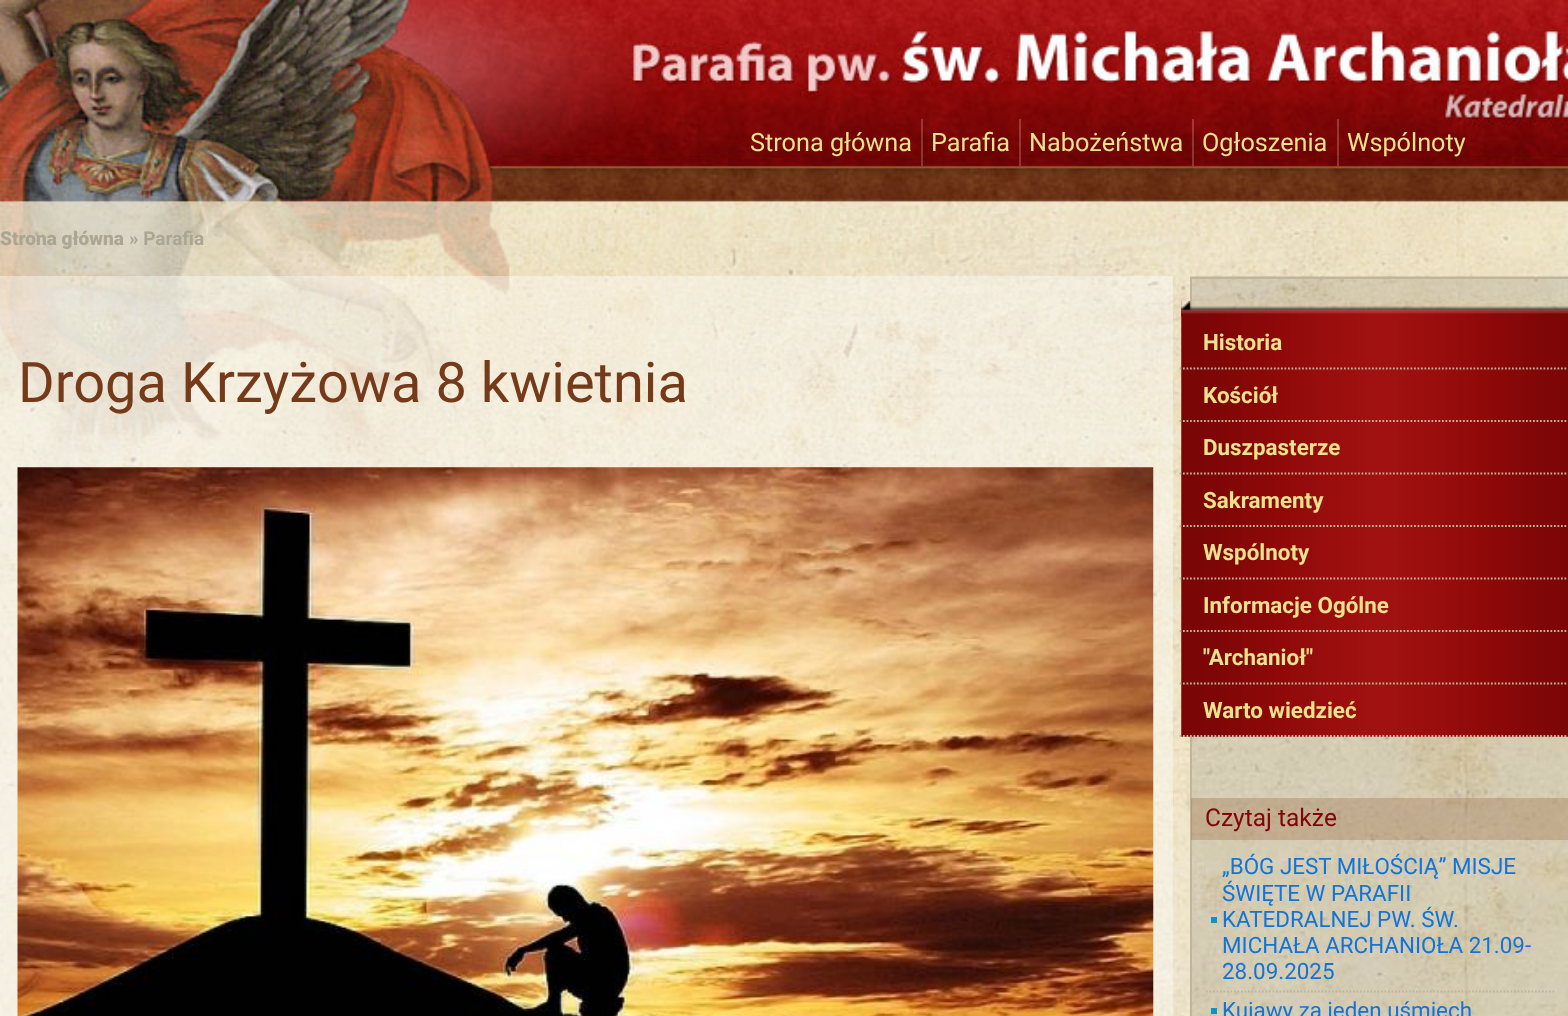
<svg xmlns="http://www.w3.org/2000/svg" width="1568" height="1016">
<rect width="100%" height="100%" fill="#fff"/>
<image x="0" y="551" width="1568" height="465" href="media/1.png"/>
<image x="0" y="0" width="1568" height="552" href="media/2.png"/>
<text x="750" y="151" style="font-family:Roboto;font-size:25.25px;fill:#eae28c">Strona główna</text>
<rect x="921" y="119" width="2" height="47" fill="#ffffff33"/>
<text x="931" y="151" style="font-family:Roboto;font-size:25.25px;fill:#eae28c">Parafia</text>
<rect x="1019" y="119" width="2" height="47" fill="#ffffff33"/>
<text x="1029" y="151" style="font-family:Roboto;font-size:25.25px;fill:#eae28c">Nabożeństwa</text>
<rect x="1192" y="119" width="2" height="47" fill="#ffffff33"/>
<text x="1202" y="151" style="font-family:Roboto;font-size:25.25px;fill:#eae28c">Ogłoszenia</text>
<rect x="1337" y="119" width="2" height="47" fill="#ffffff33"/>
<text x="1347" y="151" style="font-family:Roboto;font-size:25.25px;fill:#eae28c">Wspólnoty</text>
<text x="0" y="245" style="font-family:Roboto;font-size:19px;font-weight:900;fill:#aba594">Strona główna</text>
<text x="129" y="245" style="font-family:Roboto;font-size:19px;font-weight:bold;fill:#aba594">» Parafia</text>
<rect y="276" width="1173" height="740" fill="#ffffff66"/>
<text x="18" y="402" style="font-family:Roboto;font-size:56px;fill:#753a1a">Droga Krzyżowa 8 kwietnia</text>
<image x="17" y="467" width="1137" height="549" href="media/3.png"/>
<rect x="1190" y="276" width="378" height="740" fill="#0000001a"/>
<rect x="1191" y="278" width="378" height="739" fill="none" stroke="#beb59b" stroke-width="2"/>
<image x="1181" y="301" width="387" height="436" href="media/4.png"/>
<image x="1181" y="301" width="387" height="16" href="media/5.png"/>
<path d="M1179.5 368.5h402.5" fill="none" stroke="#beb59b" stroke-width="1.8" stroke-dasharray="1.75 1.75"/>
<text x="1203" y="350" style="font-family:Roboto;font-size:22.4px;font-weight:bold;fill:#eae28c">Historia</text>
<path d="M1179.5 421h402.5" fill="none" stroke="#beb59b" stroke-width="1.8" stroke-dasharray="1.75 1.75"/>
<text x="1203" y="403" style="font-family:Roboto;font-size:22.4px;font-weight:bold;fill:#eae28c">Kościół</text>
<path d="M1179.5 473.5h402.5" fill="none" stroke="#beb59b" stroke-width="1.8" stroke-dasharray="1.75 1.75"/>
<text x="1203" y="455" style="font-family:Roboto;font-size:22.4px;font-weight:bold;fill:#eae28c">Duszpasterze</text>
<path d="M1179.5 526h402.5" fill="none" stroke="#beb59b" stroke-width="1.8" stroke-dasharray="1.75 1.75"/>
<text x="1203" y="508" style="font-family:Roboto;font-size:22.4px;font-weight:bold;fill:#eae28c">Sakramenty</text>
<path d="M1179.5 578.5h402.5" fill="none" stroke="#beb59b" stroke-width="1.8" stroke-dasharray="1.75 1.75"/>
<text x="1203" y="560" style="font-family:Roboto;font-size:22.4px;font-weight:bold;fill:#eae28c">Wspólnoty</text>
<path d="M1179.5 631h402.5" fill="none" stroke="#beb59b" stroke-width="1.8" stroke-dasharray="1.75 1.75"/>
<text x="1203" y="613" style="font-family:Roboto;font-size:22.4px;font-weight:bold;fill:#eae28c">Informacje Ogólne</text>
<path d="M1179.5 683.5h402.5" fill="none" stroke="#beb59b" stroke-width="1.8" stroke-dasharray="1.75 1.75"/>
<text x="1203" y="665" style="font-family:Roboto;font-size:22.4px;font-weight:bold;fill:#eae28c">"Archanioł"</text>
<path d="M1179.5 736h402.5" fill="none" stroke="#beb59b" stroke-width="1.8" stroke-dasharray="1.75 1.75"/>
<text x="1203" y="718" style="font-family:Roboto;font-size:22.4px;font-weight:bold;fill:#eae28c">Warto wiedzieć</text>
<rect x="1191" y="798" width="377" height="42" fill="#864d2440"/>
<text x="1205" y="826" style="font-family:Roboto;font-size:24.5px;fill:#7d0606">Czytaj także</text>
<path d="M1206 991.5h350" fill="none" stroke="#beb59b" stroke-width="1.8" stroke-dasharray="1.75 1.75"/>
<rect x="1211" y="917" width="6" height="6" fill="#1191c2"/>
<text x="1222" y="874" style="font-family:Roboto;font-size:22.4px;fill:#1274d8">„BÓG JEST MIŁOŚCIĄ” MISJE</text>
<text x="1222" y="901" style="font-family:Roboto;font-size:22.4px;fill:#1274d8">ŚWIĘTE W PARAFII</text>
<text x="1222" y="927" style="font-family:Roboto;font-size:22.4px;fill:#1274d8">KATEDRALNEJ PW. ŚW.</text>
<text x="1222" y="953" style="font-family:Roboto;font-size:22.4px;fill:#1274d8">MICHAŁA ARCHANIOŁA 21.09-</text>
<text x="1222" y="979" style="font-family:Roboto;font-size:22.4px;fill:#1274d8">28.09.2025</text>
<rect x="1211" y="1008" width="6" height="6" fill="#1191c2"/>
<text x="1222" y="1018" style="font-family:Roboto;font-size:22.4px;fill:#1274d8">Kujawy za jeden uśmiech</text>
</svg>
